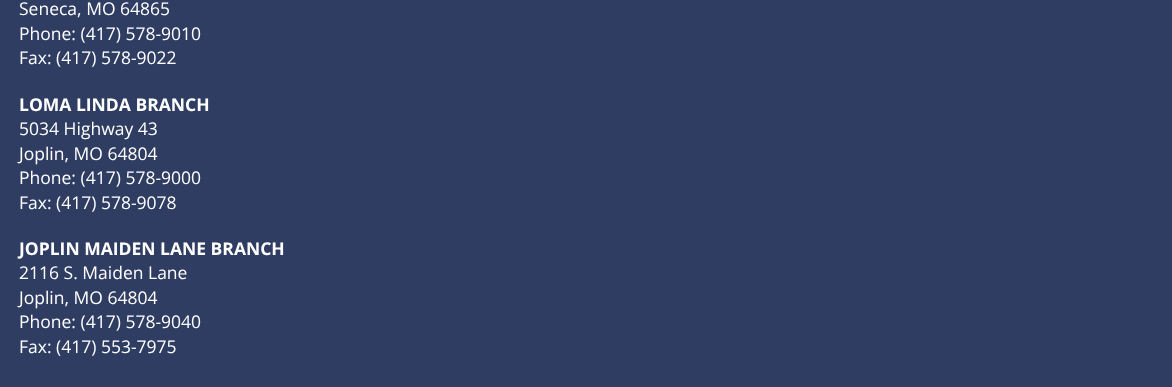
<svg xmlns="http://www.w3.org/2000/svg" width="1172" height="387">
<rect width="100%" height="100%" fill="#2f3d63"/>
<text x="19" y="15" style="font-family:Open Sans;font-size:17.5px;fill:#fff">Seneca, MO 64865</text>
<text x="19" y="40" style="font-family:Open Sans;font-size:17.5px;fill:#fff">Phone: (417) 578-9010</text>
<text x="19" y="64" style="font-family:Open Sans;font-size:17.5px;fill:#fff">Fax: (417) 578-9022</text>
<text x="19" y="111" style="font-family:Open Sans;font-size:17.5px;font-weight:bold;fill:#fff">LOMA LINDA BRANCH</text>
<text x="19" y="135" style="font-family:Open Sans;font-size:17.5px;fill:#fff">5034 Highway 43</text>
<text x="19" y="160" style="font-family:Open Sans;font-size:17.5px;fill:#fff">Joplin, MO 64804</text>
<text x="19" y="184" style="font-family:Open Sans;font-size:17.5px;fill:#fff">Phone: (417) 578-9000</text>
<text x="19" y="209" style="font-family:Open Sans;font-size:17.5px;fill:#fff">Fax: (417) 578-9078</text>
<text x="19" y="255" style="font-family:Open Sans;font-size:17.5px;font-weight:bold;fill:#fff">JOPLIN MAIDEN LANE BRANCH</text>
<text x="19" y="279" style="font-family:Open Sans;font-size:17.5px;fill:#fff">2116 S. Maiden Lane</text>
<text x="19" y="304" style="font-family:Open Sans;font-size:17.5px;fill:#fff">Joplin, MO 64804</text>
<text x="19" y="328" style="font-family:Open Sans;font-size:17.5px;fill:#fff">Phone: (417) 578-9040</text>
<text x="19" y="353" style="font-family:Open Sans;font-size:17.5px;fill:#fff">Fax: (417) 553-7975</text>
</svg>
